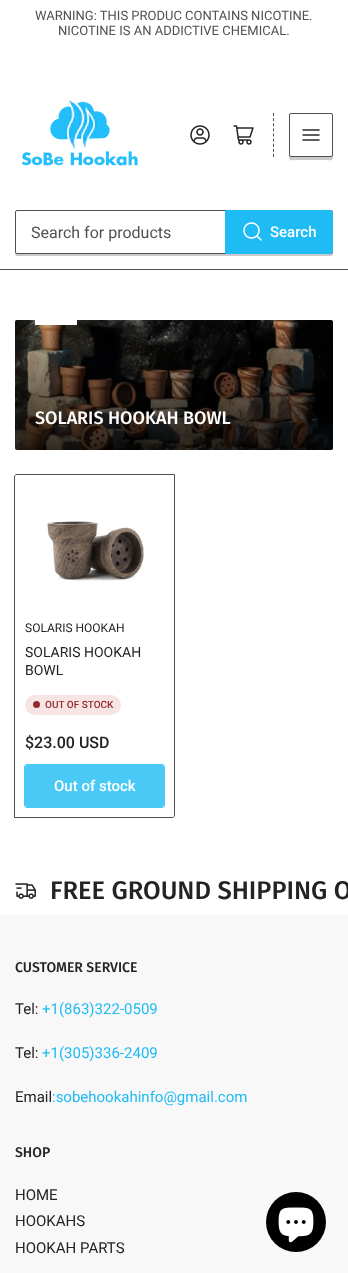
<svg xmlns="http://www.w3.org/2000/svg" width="348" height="1273">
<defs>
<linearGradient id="g1" gradientUnits="userSpaceOnUse" x1="174" y1="281" x2="174" y2="450"><stop offset="0" stop-color="#000" stop-opacity="0"/><stop offset="1" stop-color="#000" stop-opacity="0.8"/></linearGradient>
</defs>
<rect width="100%" height="100%" fill="#fff"/>
<text x="35" y="20" style="font-family:Roboto;font-size:13px;fill:#534f4f">WARNING: THIS PRODUC CONTAINS NICOTINE.</text>
<text x="58" y="35" style="font-family:Roboto;font-size:13px;fill:#534f4f">NICOTINE IS AN ADDICTIVE CHEMICAL.</text>
<rect y="269" width="348" height="1" fill="#534f4f"/>
<image x="22" y="99" width="116" height="67" href="media/1.png"/>
<image x="190" y="125" width="20" height="20" href="media/2.png"/>
<image x="233" y="125" width="21" height="20" href="media/3.png"/>
<path d="M273.5 113v44" fill="none" stroke="#534f4f" stroke-dasharray="3 2.12"/>
<path d="M289 155c0 7 1 5 9 5h26c8 0 9 2 9-5c0 1-1 2-2 2h-40c-1 0-2-1-2-2z" fill="#cbcaca"/>
<rect x="289.5" y="113.5" width="43" height="43" rx="1.5" fill="none" stroke="#534f4f"/>
<image x="302" y="129" width="18" height="12" href="media/4.png"/>
<path d="M15 252v2c0 1 1 2 2 2h314c1 0 2-1 2-2v-2c0 1-1 2-2 2h-314c-1 0-2-1-2-2z" fill="#cbcaca"/>
<rect x="15.5" y="210.5" width="317" height="43" rx="1.5" fill="#fff" stroke="#534f4f"/>
<text x="31" y="238" style="font-family:Roboto;font-size:16px;fill:#534f4f">Search for products</text>
<path d="M225.5 210.5h104.5c1.5 0 2.5 1 2.5 2.5v38c0 1.5-1 2.5-2.5 2.5h-104.5z" fill="none" stroke="#1ebbf4"/>
<path d="M226 211h104c1 0 2 1 2 2v38c0 1-1 2-2 2h-104z" fill="#1ebbf4"/>
<image x="243" y="222" width="19" height="19" href="media/5.png"/>
<text x="270" y="237" style="font-family:Roboto;font-size:15px;font-weight:500;fill:#fff">Search</text>
<image x="15" y="320" width="318" height="130" href="media/6.png"/>
<rect x="15" y="320" width="318" height="130" rx="2" fill="url(#g1)"/>
<rect x="35" y="320" width="42" height="5" fill="#fff"/>
<text x="35" y="424" style="font-family:Fira Sans;font-size:18px;font-weight:500;fill:#fff">SOLARIS HOOKAH BOWL</text>
<path d="M17 474.5h157.5v340.5c0 1.5-1 2.5-2.5 2.5h-157.5v-340.5c0-1.5 1-2.5 2.5-2.5z" fill="none" stroke="#534f4f"/>
<path d="M17 475h157v340c0 1-1 2-2 2h-157v-340c0-1 1-2 2-2z" fill="#fff"/>
<image x="46" y="521" width="99" height="60" href="media/7.png"/>
<text x="25" y="632" style="font-family:Roboto;font-size:12px;fill:#232323">SOLARIS HOOKAH</text>
<text x="25" y="657" style="font-family:Roboto;font-size:14px;fill:#232323">SOLARIS HOOKAH</text>
<text x="25" y="675" style="font-family:Roboto;font-size:14px;fill:#232323">BOWL</text>
<rect x="25" y="695" width="96" height="20" rx="10" fill="#f7e5e5"/>
<circle cx="36.5" cy="704.5" r="3.5" fill="#922c2c"/>
<text x="45" y="708" style="font-family:Roboto;font-size:10px;font-weight:500;fill:#922c2c">OUT OF STOCK</text>
<text x="25" y="748" style="font-family:Roboto;font-size:16px;font-weight:500;fill:#232323">$23.00 USD</text>
<rect x="24.5" y="764.5" width="140" height="43" rx="2.5" fill="none" stroke="#4bc9f6"/>
<rect x="25" y="765" width="139" height="42" rx="2" fill="#4bc9f6"/>
<text x="54" y="791" style="font-family:Roboto;font-size:15px;font-weight:500;fill:#fff">Out of stock</text>
<image x="15" y="883" width="21" height="16" href="media/8.png"/>
<text x="50" y="899" style="font-family:Fira Sans;font-size:25.5px;font-weight:500;fill:#232323">FREE GROUND SHIPPING O</text>
<rect y="914" width="348" height="359" fill="#f8f8f8"/>
<text x="15" y="972" style="font-family:Fira Sans;font-size:14px;font-weight:500;fill:#232323">CUSTOMER SERVICE</text>
<text x="15" y="1014" style="font-family:Roboto;font-size:15px;fill:#232323">Tel:</text>
<text x="42" y="1014" style="font-family:Roboto;font-size:15px;fill:#1ebbf4">+1(863)322-0509</text>
<text x="15" y="1058" style="font-family:Roboto;font-size:15px;fill:#232323">Tel:</text>
<text x="42" y="1058" style="font-family:Roboto;font-size:15px;fill:#1ebbf4">+1(305)336-2409</text>
<text x="15" y="1102" style="font-family:Roboto;font-size:15px;fill:#232323">Email</text>
<text x="52" y="1102" style="font-family:Roboto;font-size:15px;fill:#1ebbf4">:sobehookahinfo@gmail.com</text>
<text x="15" y="1157" style="font-family:Fira Sans;font-size:14px;font-weight:500;fill:#232323">SHOP</text>
<text x="15" y="1200" style="font-family:Roboto;font-size:15px;fill:#232323">HOME</text>
<text x="15" y="1226" style="font-family:Roboto;font-size:15px;fill:#232323">HOOKAHS</text>
<text x="15" y="1253" style="font-family:Roboto;font-size:15px;fill:#232323">HOOKAH PARTS</text>
<circle cx="296" cy="1222" r="30" fill="#000"/>
<image x="278" y="1207" width="36" height="36" href="media/9.png"/>
</svg>
